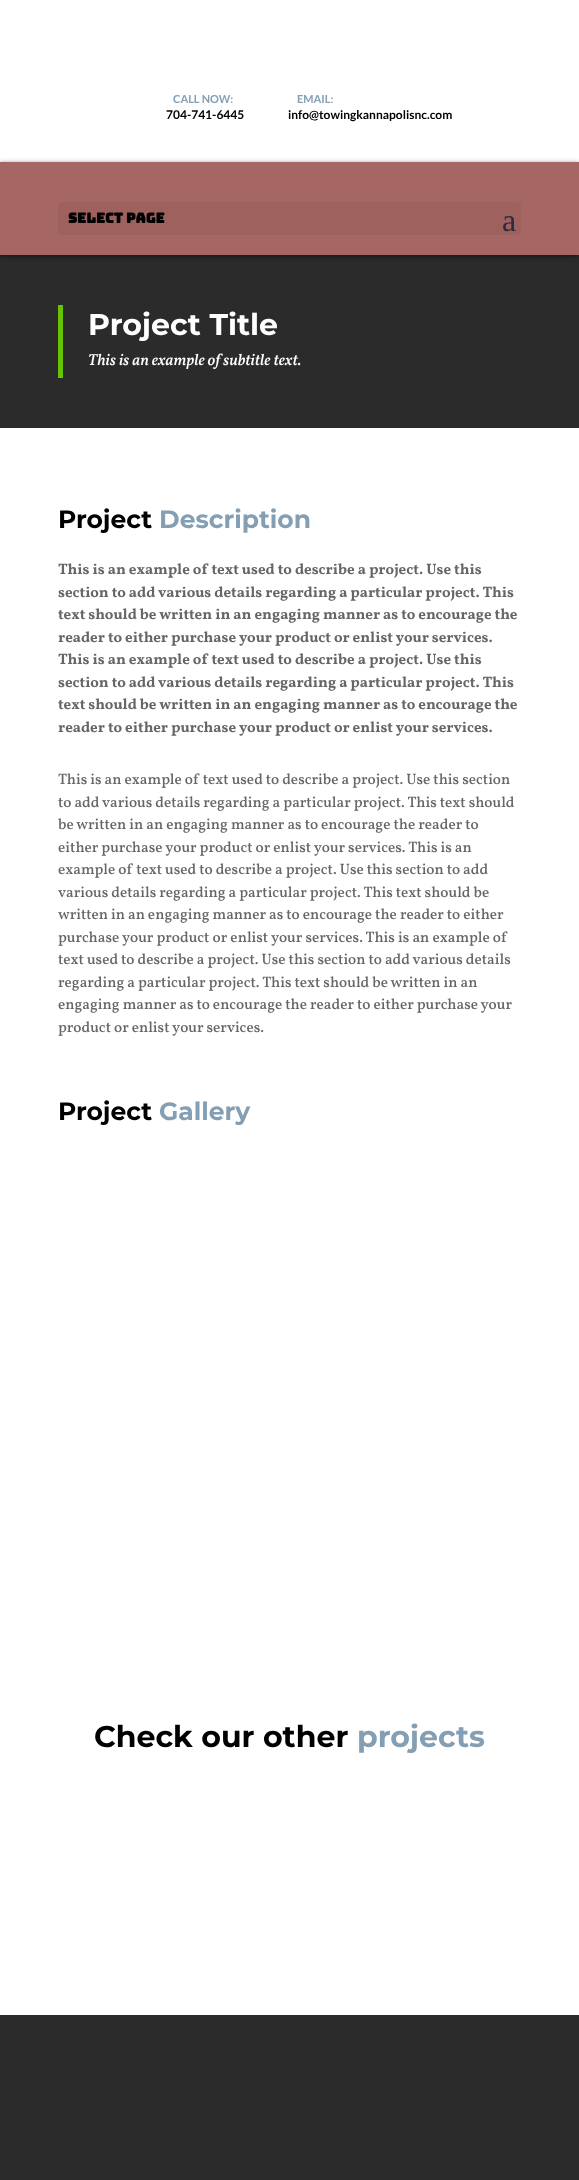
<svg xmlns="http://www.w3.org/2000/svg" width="579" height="2180">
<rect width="100%" height="100%" fill="#fff"/>
<text x="173" y="103" style="font-family:Lato;font-size:11px;font-weight:bold;fill:#849eb3">CALL NOW:</text>
<text x="166" y="119" style="font-family:Lato;font-size:12px;font-weight:bold;fill:#000">704-741-6445</text>
<text x="297" y="103" style="font-family:Lato;font-size:11px;font-weight:bold;fill:#849eb3">EMAIL:</text>
<text x="288" y="119" style="font-family:Lato;font-size:12px;font-weight:bold;fill:#000">info@towingkannapolisnc.com</text>
<rect y="255" width="579" height="173" fill="#2b2b2b"/>
<rect y="163" width="579" height="93" fill="#00000080" filter="blur(2.5px)"/>
<rect y="162" width="579" height="93" fill="#a66663"/>
<rect x="58" y="202" width="463" height="33" rx="5" fill="#9e615e"/>
<text x="68" y="223" style="font-family:Bungee Inline;font-size:14px;font-weight:bold;fill:#000">Select Page</text>
<text x="502" y="231" style="font-family:Liberation Serif;font-size:32px;fill:#2a2b41">a</text>
<rect x="58" y="305" width="5" height="73" fill="#66c500"/>
<text x="88" y="335" style="font-family:Montserrat;font-size:30px;font-weight:100;fill:#fff">Project Title</text>
<text x="88" y="365" style="font-family:Vollkorn;font-size:16px;font-weight:500;font-style:italic;fill:#fff">This is an example of subtitle text.</text>
<text x="58" y="528" style="font-family:Montserrat;font-size:25px;font-weight:100;fill:#000">Project</text>
<text x="159" y="528" style="font-family:Montserrat;font-size:25px;font-weight:100;fill:#849eb3">Description</text>
<text x="58" y="574" style="font-family:Vollkorn;font-size:15px;font-weight:bold;fill:#666">This is an example of text used to describe a project. Use this</text>
<text x="58" y="597" style="font-family:Vollkorn;font-size:15px;font-weight:bold;fill:#666">section to add various details regarding a particular project. This</text>
<text x="58" y="619" style="font-family:Vollkorn;font-size:15px;font-weight:bold;fill:#666">text should be written in an engaging manner as to encourage the</text>
<text x="58" y="642" style="font-family:Vollkorn;font-size:15px;font-weight:bold;fill:#666">reader to either purchase your product or enlist your services.</text>
<text x="58" y="664" style="font-family:Vollkorn;font-size:15px;font-weight:bold;fill:#666">This is an example of text used to describe a project. Use this</text>
<text x="58" y="687" style="font-family:Vollkorn;font-size:15px;font-weight:bold;fill:#666">section to add various details regarding a particular project. This</text>
<text x="58" y="709" style="font-family:Vollkorn;font-size:15px;font-weight:bold;fill:#666">text should be written in an engaging manner as to encourage the</text>
<text x="58" y="732" style="font-family:Vollkorn;font-size:15px;font-weight:bold;fill:#666">reader to either purchase your product or enlist your services.</text>
<text x="58" y="784" style="font-family:Vollkorn;font-size:15px;font-weight:500;fill:#666">This is an example of text used to describe a project. Use this section</text>
<text x="58" y="807" style="font-family:Vollkorn;font-size:15px;font-weight:500;fill:#666">to add various details regarding a particular project. This text should</text>
<text x="58" y="829" style="font-family:Vollkorn;font-size:15px;font-weight:500;fill:#666">be written in an engaging manner as to encourage the reader to</text>
<text x="58" y="852" style="font-family:Vollkorn;font-size:15px;font-weight:500;fill:#666">either purchase your product or enlist your services. This is an</text>
<text x="58" y="874" style="font-family:Vollkorn;font-size:15px;font-weight:500;fill:#666">example of text used to describe a project. Use this section to add</text>
<text x="58" y="897" style="font-family:Vollkorn;font-size:15px;font-weight:500;fill:#666">various details regarding a particular project. This text should be</text>
<text x="58" y="919" style="font-family:Vollkorn;font-size:15px;font-weight:500;fill:#666">written in an engaging manner as to encourage the reader to either</text>
<text x="58" y="942" word-spacing="0.1" style="font-family:Vollkorn;font-size:15px;font-weight:500;fill:#666">purchase your product or enlist your services. This is an example of</text>
<text x="58" y="964" style="font-family:Vollkorn;font-size:15px;font-weight:500;fill:#666">text used to describe a project. Use this section to add various details</text>
<text x="58" y="987" style="font-family:Vollkorn;font-size:15px;font-weight:500;fill:#666">regarding a particular project. This text should be written in an</text>
<text x="58" y="1009" style="font-family:Vollkorn;font-size:15px;font-weight:500;fill:#666">engaging manner as to encourage the reader to either purchase your</text>
<text x="58" y="1032" style="font-family:Vollkorn;font-size:15px;font-weight:500;fill:#666">product or enlist your services.</text>
<text x="58" y="1120" style="font-family:Montserrat;font-size:25px;font-weight:100;fill:#000">Project</text>
<text x="159" y="1120" style="font-family:Montserrat;font-size:25px;font-weight:100;fill:#849eb3">Gallery</text>
<text x="94" y="1747" style="font-family:Montserrat;font-size:30px;font-weight:100;fill:#000">Check our other</text>
<text x="357" y="1747" style="font-family:Montserrat;font-size:30px;font-weight:100;fill:#849eb3">projects</text>
<rect y="2015" width="579" height="165" fill="#2b2b2b"/>
</svg>
